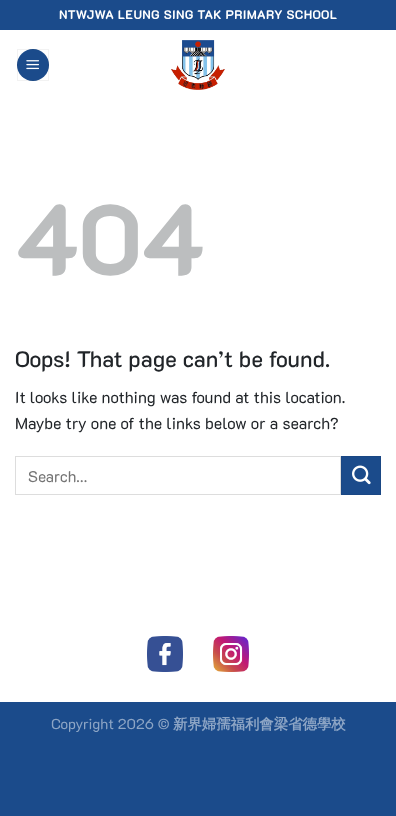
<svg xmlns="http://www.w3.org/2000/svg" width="396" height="816">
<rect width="100%" height="100%" fill="#1b4b8b"/>
<rect y="30" width="396" height="672" fill="#fff"/>
<text x="59" y="19" style="font-family:'K2D';font-size:12px;font-weight:bold;letter-spacing:0.6px;fill:#fff">NTWJWA LEUNG SING TAK PRIMARY SCHOOL</text>
<circle cx="33" cy="65" r="16" fill="#1b4b8b"/>
<rect x="17.5" y="49.5" width="31" height="31" fill="none" stroke="#0000000d"/>
<image x="26" y="60" width="13" height="10" href="media/1.png"/>
<image x="171" y="40" width="54" height="50" href="media/2.png"/>
<text x="15" y="275" style="font-family:'K2D';font-size:96px;font-weight:bold;fill:#bcbebf">404</text>
<text x="15" y="367" style="font-family:'K2D';font-size:22.4px;font-weight:500;fill:#212529">Oops! That page can’t be found.</text>
<text x="15" y="403" style="font-family:'K2D';font-size:16px;fill:#212529">It looks like nothing was found at this location.</text>
<text x="15" y="429" style="font-family:'K2D';font-size:16px;fill:#212529">Maybe try one of the links below or a search?</text>
<rect x="15.5" y="456.5" width="325" height="38" fill="none" stroke="#ddd"/>
<text x="28" y="482" style="font-family:'K2D';font-size:15.5px;fill:#757575">Search…</text>
<rect x="341.5" y="456.5" width="39" height="38" fill="#1b4b8b" stroke="#1a4784"/>
<image x="352" y="465" width="19" height="20" href="media/3.png"/>
<image x="147" y="636" width="36" height="36" href="media/4.png"/>
<image x="213" y="636" width="36" height="36" href="media/5.png"/>
<text x="51" y="729" style="font-family:'K2D';font-size:14.4px;fill:#8da5c5">Copyright 2026 ©</text>
<text x="173" y="729" style="font-family:WenQuanYi Zen Hei;font-size:14.4px;font-weight:bold;fill:#8da5c5">新界婦孺福利會梁省德學校</text>
</svg>
